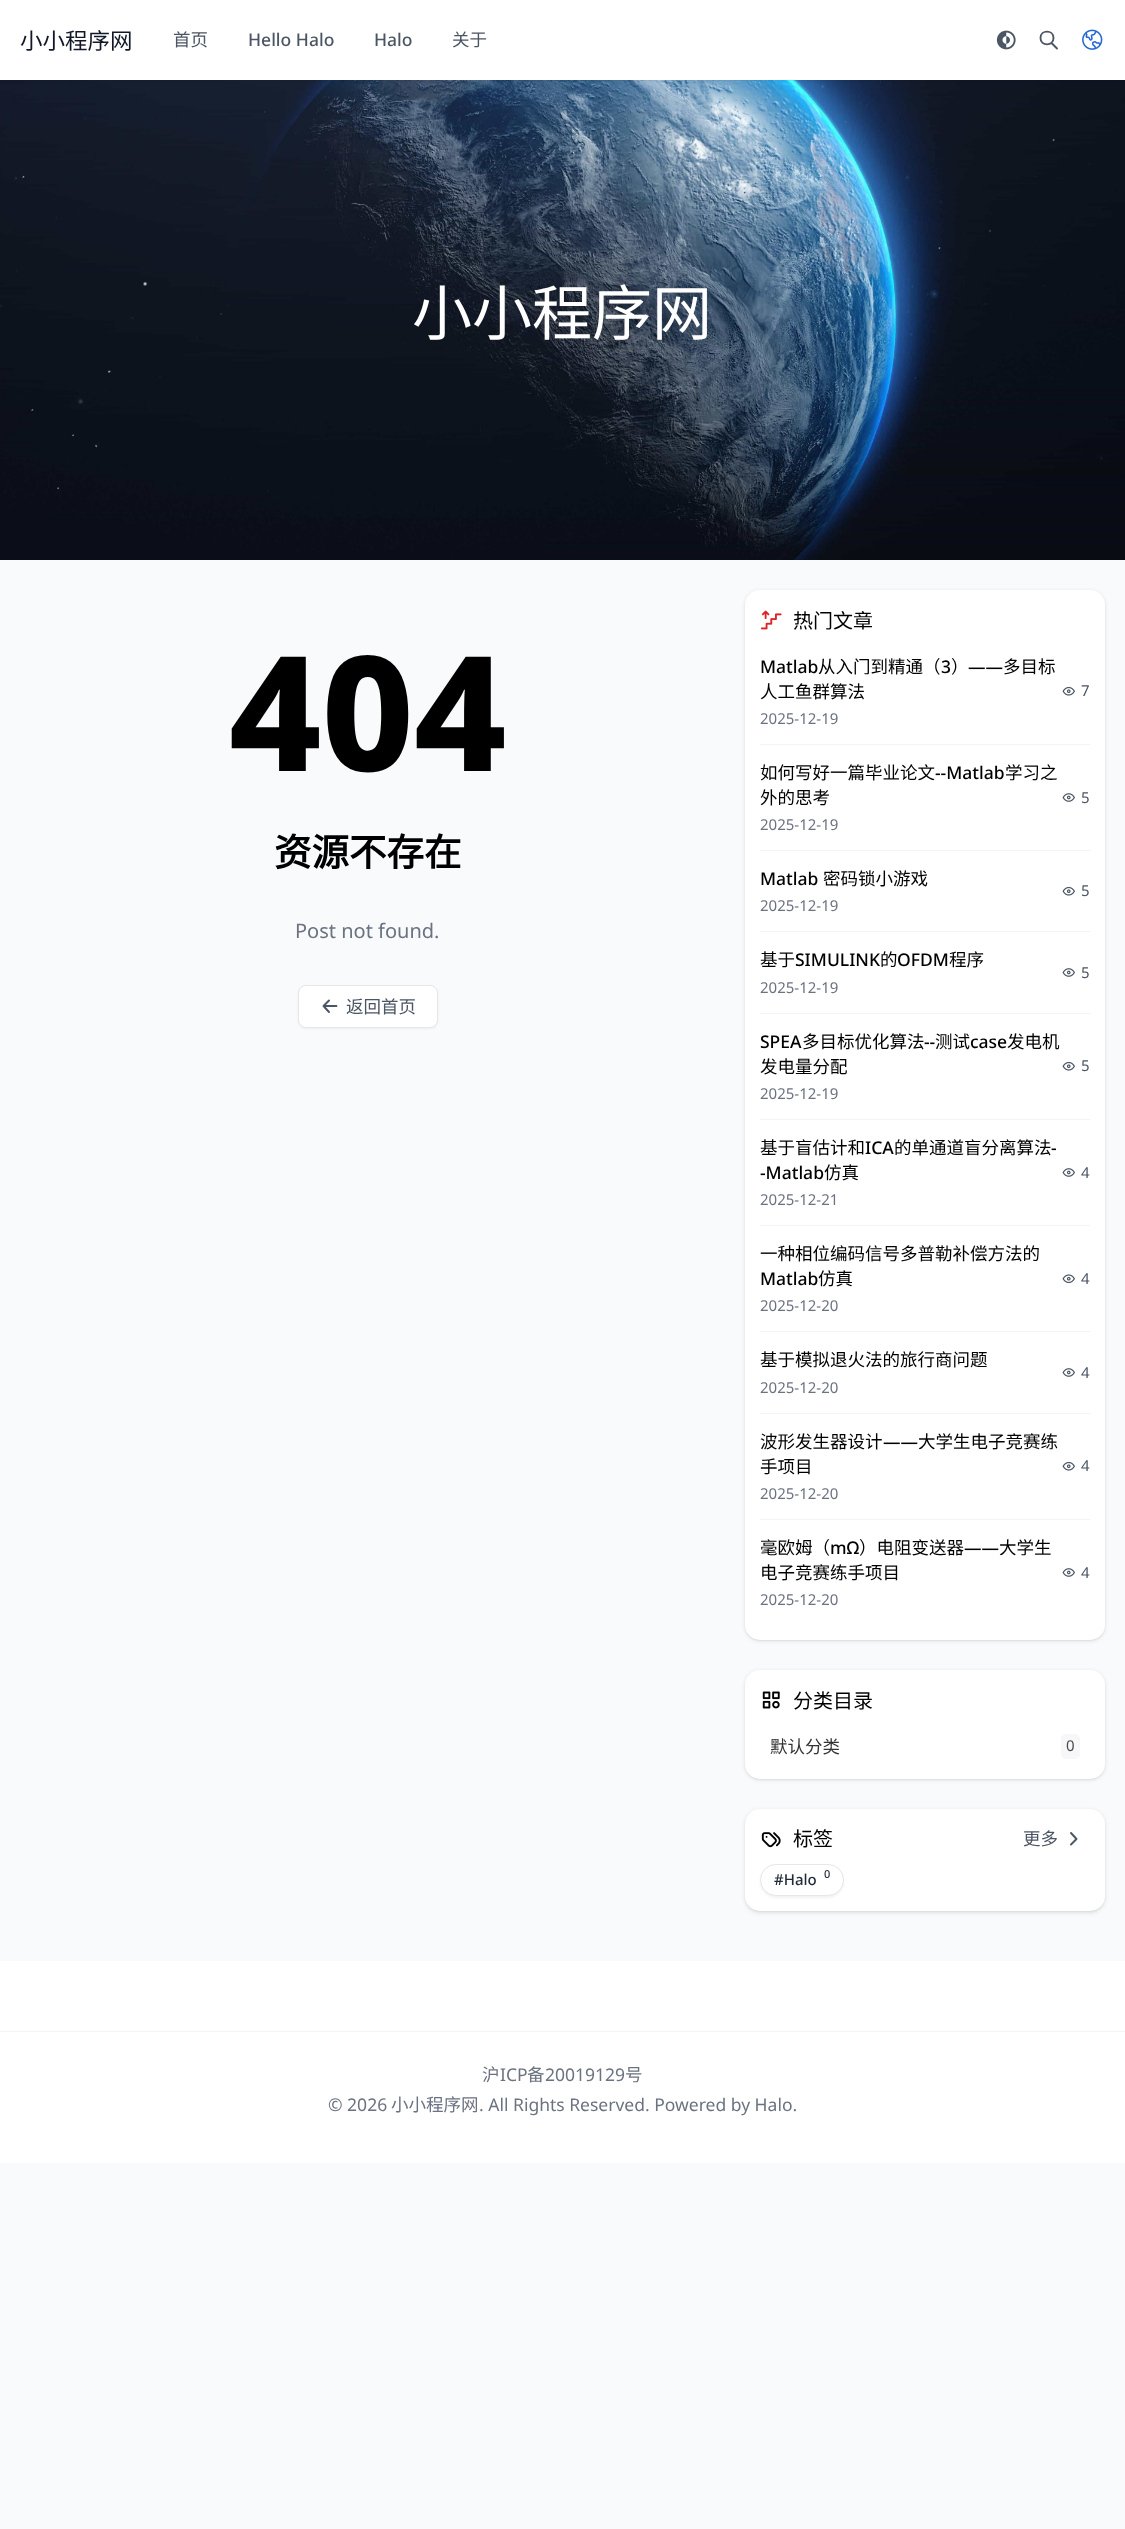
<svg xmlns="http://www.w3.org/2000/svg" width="1125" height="2529">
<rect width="100%" height="100%" fill="#f8fafc"/>
<image x="0" y="80" width="1125" height="480" href="media/3.png"/>
<rect y="1" width="1125" height="80" fill="#0000000d" filter="blur(1px)"/>
<rect width="1125" height="80" fill="#fff"/>
<text x="20" y="49" style="font-family:Noto Sans CJK SC;font-size:22.5px;fill:#111827">小小程序网</text>
<text x="173" y="46" style="font-family:Noto Sans CJK SC;font-size:17.5px;fill:#4b5563">首页</text>
<text x="248" y="46" style="font-family:Noto Sans;font-size:17.5px;font-weight:500;fill:#4b5563">Hello Halo</text>
<text x="374" y="46" style="font-family:Noto Sans;font-size:17.5px;font-weight:500;fill:#4b5563">Halo</text>
<text x="452" y="46" style="font-family:Noto Sans CJK SC;font-size:17.5px;fill:#4b5563">关于</text>
<image x="996" y="30" width="20" height="20" href="media/1.png"/>
<path d="M1040.5 38c0 8.5 13 8.5 13 0c0-8.5-13-8.5-13 0m16.5 10.5l-5.5-5.5" fill="none" stroke="#4b5563" stroke-width="1.9" stroke-linecap="round" stroke-linejoin="round"/>
<image x="1082" y="29" width="21" height="21" href="media/2.png"/>
<text x="412" y="335" style="font-family:Noto Sans CJK SC;font-size:60px;fill:#fff">小小程序网</text>
<text x="229" y="771" style="font-family:Noto Sans;font-size:160px;font-weight:800;fill:#000">404</text>
<text x="274" y="866" style="font-family:Noto Sans CJK SC;font-size:37.5px;font-weight:bold;fill:#000">资源不存在</text>
<text x="295" y="938" style="font-family:Noto Sans;font-size:20px;fill:#6b7280">Post not found.</text>
<rect x="298" y="986" width="140" height="43" rx="8" fill="#0000000d" filter="blur(1px)"/>
<rect x="298.5" y="985.5" width="139" height="42" rx="7.5" fill="#fff" stroke="#e5e7eb"/>
<path d="M323.5 1006h13m-13 0l5.5 6m-5.5-6l5.5-5.5" fill="none" stroke="#4b5563" stroke-width="1.9" stroke-linecap="round" stroke-linejoin="round"/>
<text x="346" y="1013" style="font-family:Noto Sans CJK SC;font-size:17.5px;fill:#4b5563">返回首页</text>
<rect x="746" y="593" width="358" height="1047" rx="14" fill="#0000001a" filter="blur(1px)"/>
<rect x="745" y="591" width="360" height="1050" rx="15" fill="#0000001a" filter="blur(2px)"/>
<rect x="745" y="590" width="360" height="1050" rx="15" fill="#fff"/>
<image x="760" y="610" width="22" height="20" href="media/4.png"/>
<text x="793" y="628" style="font-family:Noto Sans CJK SC;font-size:20px;fill:#000">热门文章</text>
<text x="760" y="673" style="font-family:Noto Sans;font-size:17.5px;font-weight:500;fill:#000">Matlab</text>
<text x="818" y="673" style="font-family:Noto Sans CJK SC;font-size:17.5px;fill:#000">从入门到精通（</text>
<text x="941" y="673" style="font-family:Noto Sans;font-size:17.5px;font-weight:500;fill:#000">3</text>
<text x="951" y="673" style="font-family:Noto Sans CJK SC;font-size:17.5px;fill:#000">）</text>
<text x="968" y="673" style="font-family:Noto Sans;font-size:17.5px;font-weight:500;fill:#000">——</text>
<text x="1003" y="673" style="font-family:Noto Sans CJK SC;font-size:17.5px;fill:#000">多目标</text>
<text x="760" y="698" style="font-family:Noto Sans CJK SC;font-size:17.5px;fill:#000">人工鱼群算法</text>
<text x="760" y="724" style="font-family:Noto Sans;font-size:15px;fill:#6b7280">2025-12-19</text>
<image x="1062" y="686" width="13" height="10" href="media/5.png"/>
<text x="1081" y="696" style="font-family:Noto Sans;font-size:15px;fill:#4b5563">7</text>
<rect x="760" y="744" width="330" height="1" fill="#f3f4f6"/>
<text x="760" y="779" style="font-family:Noto Sans CJK SC;font-size:17.5px;fill:#000">如何写好一篇毕业论文</text>
<text x="935" y="779" style="font-family:Noto Sans;font-size:17.5px;font-weight:500;fill:#000">--Matlab</text>
<text x="1005" y="779" style="font-family:Noto Sans CJK SC;font-size:17.5px;fill:#000">学习之</text>
<text x="760" y="804" style="font-family:Noto Sans CJK SC;font-size:17.5px;fill:#000">外的思考</text>
<text x="760" y="830" style="font-family:Noto Sans;font-size:15px;fill:#6b7280">2025-12-19</text>
<image x="1062" y="793" width="13" height="9" href="media/6.png"/>
<text x="1081" y="803" style="font-family:Noto Sans;font-size:15px;fill:#4b5563">5</text>
<rect x="760" y="850" width="330" height="1" fill="#f3f4f6"/>
<text x="760" y="885" style="font-family:Noto Sans;font-size:17.5px;font-weight:500;fill:#000">Matlab</text>
<text x="823" y="885" style="font-family:Noto Sans CJK SC;font-size:17.5px;fill:#000">密码锁小游戏</text>
<text x="760" y="911" style="font-family:Noto Sans;font-size:15px;fill:#6b7280">2025-12-19</text>
<image x="1062" y="886" width="13" height="10" href="media/5.png"/>
<text x="1081" y="896" style="font-family:Noto Sans;font-size:15px;fill:#4b5563">5</text>
<rect x="760" y="931" width="330" height="1" fill="#f3f4f6"/>
<text x="760" y="966" style="font-family:Noto Sans CJK SC;font-size:17.5px;fill:#000">基于</text>
<text x="795" y="966" style="font-family:Noto Sans;font-size:17.5px;font-weight:500;fill:#000">SIMULINK</text>
<text x="880" y="966" style="font-family:Noto Sans CJK SC;font-size:17.5px;fill:#000">的</text>
<text x="897" y="966" style="font-family:Noto Sans;font-size:17.5px;font-weight:500;fill:#000">OFDM</text>
<text x="949" y="966" style="font-family:Noto Sans CJK SC;font-size:17.5px;fill:#000">程序</text>
<text x="760" y="993" style="font-family:Noto Sans;font-size:15px;fill:#6b7280">2025-12-19</text>
<image x="1062" y="968" width="13" height="9" href="media/6.png"/>
<text x="1081" y="978" style="font-family:Noto Sans;font-size:15px;fill:#4b5563">5</text>
<rect x="760" y="1013" width="330" height="1" fill="#f3f4f6"/>
<text x="760" y="1048" style="font-family:Noto Sans;font-size:17.5px;font-weight:500;fill:#000">SPEA</text>
<text x="802" y="1048" style="font-family:Noto Sans CJK SC;font-size:17.5px;fill:#000">多目标优化算法</text>
<text x="924" y="1048" style="font-family:Noto Sans;font-size:17.5px;font-weight:500;fill:#000">--</text>
<text x="935" y="1048" style="font-family:Noto Sans CJK SC;font-size:17.5px;fill:#000">测试</text>
<text x="970" y="1048" style="font-family:Noto Sans;font-size:17.5px;font-weight:500;fill:#000">case</text>
<text x="1007" y="1048" style="font-family:Noto Sans CJK SC;font-size:17.5px;fill:#000">发电机</text>
<text x="760" y="1073" style="font-family:Noto Sans CJK SC;font-size:17.5px;fill:#000">发电量分配</text>
<text x="760" y="1099" style="font-family:Noto Sans;font-size:15px;fill:#6b7280">2025-12-19</text>
<image x="1062" y="1061" width="13" height="10" href="media/5.png"/>
<text x="1081" y="1071" style="font-family:Noto Sans;font-size:15px;fill:#4b5563">5</text>
<rect x="760" y="1119" width="330" height="1" fill="#f3f4f6"/>
<text x="760" y="1154" style="font-family:Noto Sans CJK SC;font-size:17.5px;fill:#000">基于盲估计和</text>
<text x="865" y="1154" style="font-family:Noto Sans;font-size:17.5px;font-weight:500;fill:#000">ICA</text>
<text x="894" y="1154" style="font-family:Noto Sans CJK SC;font-size:17.5px;fill:#000">的单通道盲分离算法</text>
<text x="1051" y="1154" style="font-family:Noto Sans;font-size:17.5px;font-weight:500;fill:#000">-</text>
<text x="760" y="1179" style="font-family:Noto Sans;font-size:17.5px;font-weight:500;fill:#000">-Matlab</text>
<text x="824" y="1179" style="font-family:Noto Sans CJK SC;font-size:17.5px;fill:#000">仿真</text>
<text x="760" y="1205" style="font-family:Noto Sans;font-size:15px;fill:#6b7280">2025-12-21</text>
<image x="1062" y="1168" width="13" height="9" href="media/6.png"/>
<text x="1081" y="1178" style="font-family:Noto Sans;font-size:15px;fill:#4b5563">4</text>
<rect x="760" y="1225" width="330" height="1" fill="#f3f4f6"/>
<text x="760" y="1260" style="font-family:Noto Sans CJK SC;font-size:17.5px;fill:#000">一种相位编码信号多普勒补偿方法的</text>
<text x="760" y="1285" style="font-family:Noto Sans;font-size:17.5px;font-weight:500;fill:#000">Matlab</text>
<text x="818" y="1285" style="font-family:Noto Sans CJK SC;font-size:17.5px;fill:#000">仿真</text>
<text x="760" y="1311" style="font-family:Noto Sans;font-size:15px;fill:#6b7280">2025-12-20</text>
<image x="1062" y="1274" width="13" height="10" href="media/7.png"/>
<text x="1081" y="1284" style="font-family:Noto Sans;font-size:15px;fill:#4b5563">4</text>
<rect x="760" y="1331" width="330" height="1" fill="#f3f4f6"/>
<text x="760" y="1366" style="font-family:Noto Sans CJK SC;font-size:17.5px;fill:#000">基于模拟退火法的旅行商问题</text>
<text x="760" y="1393" style="font-family:Noto Sans;font-size:15px;fill:#6b7280">2025-12-20</text>
<image x="1062" y="1368" width="13" height="9" href="media/6.png"/>
<text x="1081" y="1378" style="font-family:Noto Sans;font-size:15px;fill:#4b5563">4</text>
<rect x="760" y="1413" width="330" height="1" fill="#f3f4f6"/>
<text x="760" y="1448" style="font-family:Noto Sans CJK SC;font-size:17.5px;fill:#000">波形发生器设计</text>
<text x="883" y="1448" style="font-family:Noto Sans;font-size:17.5px;font-weight:500;fill:#000">——</text>
<text x="918" y="1448" style="font-family:Noto Sans CJK SC;font-size:17.5px;fill:#000">大学生电子竞赛练</text>
<text x="760" y="1473" style="font-family:Noto Sans CJK SC;font-size:17.5px;fill:#000">手项目</text>
<text x="760" y="1499" style="font-family:Noto Sans;font-size:15px;fill:#6b7280">2025-12-20</text>
<image x="1062" y="1461" width="13" height="10" href="media/5.png"/>
<text x="1081" y="1471" style="font-family:Noto Sans;font-size:15px;fill:#4b5563">4</text>
<rect x="760" y="1519" width="330" height="1" fill="#f3f4f6"/>
<text x="760" y="1554" style="font-family:Noto Sans CJK SC;font-size:17.5px;fill:#000">毫欧姆（</text>
<text x="830" y="1554" style="font-family:Noto Sans;font-size:17.5px;font-weight:500;fill:#000">mΩ</text>
<text x="859" y="1554" style="font-family:Noto Sans CJK SC;font-size:17.5px;fill:#000">）电阻变送器</text>
<text x="964" y="1554" style="font-family:Noto Sans;font-size:17.5px;font-weight:500;fill:#000">——</text>
<text x="999" y="1554" style="font-family:Noto Sans CJK SC;font-size:17.5px;fill:#000">大学生</text>
<text x="760" y="1579" style="font-family:Noto Sans CJK SC;font-size:17.5px;fill:#000">电子竞赛练手项目</text>
<text x="760" y="1605" style="font-family:Noto Sans;font-size:15px;fill:#6b7280">2025-12-20</text>
<image x="1062" y="1568" width="13" height="9" href="media/6.png"/>
<text x="1081" y="1578" style="font-family:Noto Sans;font-size:15px;fill:#4b5563">4</text>
<rect x="746" y="1673" width="358" height="106" rx="14" fill="#0000001a" filter="blur(1px)"/>
<rect x="745" y="1671" width="360" height="109" rx="15" fill="#0000001a" filter="blur(2px)"/>
<rect x="745" y="1670" width="360" height="109" rx="15" fill="#fff"/>
<image x="762" y="1691" width="18" height="18" href="media/8.png"/>
<text x="793" y="1708" style="font-family:Noto Sans CJK SC;font-size:20px;fill:#000">分类目录</text>
<text x="770" y="1753" style="font-family:Noto Sans CJK SC;font-size:17.5px;fill:#333">默认分类</text>
<rect x="1061" y="1734" width="19" height="25" rx="5" fill="#f7f7f9"/>
<text x="1066" y="1751" style="font-family:Noto Sans;font-size:15px;fill:#4d4d4d">0</text>
<rect x="746" y="1811" width="358" height="100" rx="14" fill="#0000001a" filter="blur(1px)"/>
<rect x="745" y="1810" width="360" height="103" rx="15" fill="#0000001a" filter="blur(2px)"/>
<rect x="745" y="1809" width="360" height="102" rx="15" fill="#fff"/>
<image x="761" y="1832" width="20" height="16" href="media/9.png"/>
<text x="793" y="1846" style="font-family:Noto Sans CJK SC;font-size:20px;fill:#000">标签</text>
<text x="1023" y="1845" style="font-family:Noto Sans CJK SC;font-size:17.5px;fill:#4b5563">更多</text>
<path d="M1071 1833l5.5 6l-5.5 5.5" fill="none" stroke="#4b5563" stroke-width="1.9" stroke-linecap="round" stroke-linejoin="round"/>
<rect x="760" y="1865" width="84" height="33" rx="16.5" fill="#0000000d" filter="blur(1px)"/>
<rect x="760.5" y="1864.5" width="83" height="31" rx="15.5" fill="#fff" stroke="#e5e7eb"/>
<text x="774" y="1885" style="font-family:Noto Sans;font-size:15px;font-weight:500;fill:#1f2937">#Halo</text>
<text x="824" y="1878" style="font-family:Noto Sans;font-size:11px;font-weight:500;fill:#1f2937">0</text>
<rect y="1961" width="1125" height="202" fill="#fff"/>
<rect y="2031" width="1125" height="1" fill="#f3f4f6"/>
<text x="482" y="2081" style="font-family:Noto Sans CJK SC;font-size:17.5px;fill:#6b7280">沪</text>
<text x="500" y="2081" style="font-family:Noto Sans;font-size:17.5px;fill:#6b7280">ICP</text>
<text x="527" y="2081" style="font-family:Noto Sans CJK SC;font-size:17.5px;fill:#6b7280">备</text>
<text x="545" y="2081" style="font-family:Noto Sans;font-size:17.5px;fill:#6b7280">20019129</text>
<text x="625" y="2081" style="font-family:Noto Sans CJK SC;font-size:17.5px;fill:#6b7280">号</text>
<text x="328" y="2111" style="font-family:Noto Sans;font-size:17.5px;fill:#6b7280">© 2026</text>
<text x="391" y="2111" style="font-family:Noto Sans CJK SC;font-size:17.5px;fill:#6b7280">小小程序网</text>
<text x="479" y="2111" style="font-family:Noto Sans;font-size:17.5px;fill:#6b7280">. All Rights Reserved. Powered by Halo.</text>
</svg>
